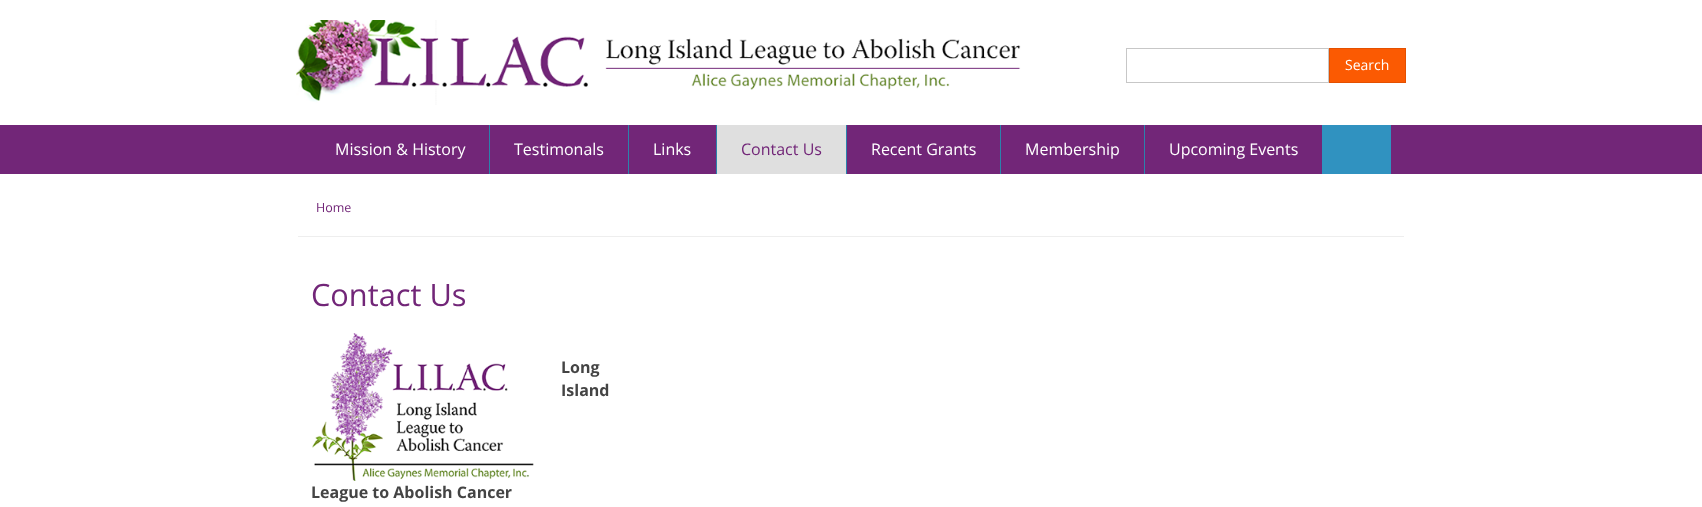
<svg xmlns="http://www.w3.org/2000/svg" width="1702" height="507">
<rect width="100%" height="100%" fill="#fff"/>
<image x="296" y="20" width="725" height="85" href="media/1.png"/>
<rect x="1126.5" y="48.5" width="202" height="34" fill="none" stroke="#c7c7c7"/>
<rect x="1329.5" y="48.5" width="76" height="34" fill="#fb5a02" stroke="#e45000"/>
<text x="1345" y="70" style="font-family:Open Sans;font-size:14px;fill:#fff">Search</text>
<rect y="125" width="1702" height="49" fill="#722678"/>
<rect x="1322" y="125" width="69" height="49" fill="#3092c0"/>
<text x="335" y="155" style="font-family:Open Sans;font-size:16px;fill:#fff">Mission &amp; History</text>
<rect x="489" y="125" width="1" height="49" fill="#2b82ac"/>
<text x="514" y="155" style="font-family:Open Sans;font-size:16px;fill:#fff">Testimonals</text>
<rect x="628" y="125" width="1" height="49" fill="#2b82ac"/>
<text x="653" y="155" style="font-family:Open Sans;font-size:16px;fill:#fff">Links</text>
<rect x="716" y="125" width="1" height="49" fill="#2b82ac"/>
<rect x="717" y="125" width="129" height="49" fill="#dfdfdf"/>
<text x="741" y="155" style="font-family:Open Sans;font-size:16px;fill:#722678">Contact Us</text>
<rect x="846" y="125" width="1" height="49" fill="#2b82ac"/>
<text x="871" y="155" style="font-family:Open Sans;font-size:16px;fill:#fff">Recent Grants</text>
<rect x="1000" y="125" width="1" height="49" fill="#2b82ac"/>
<text x="1025" y="155" style="font-family:Open Sans;font-size:16px;fill:#fff">Membership</text>
<rect x="1144" y="125" width="1" height="49" fill="#2b82ac"/>
<text x="1169" y="155" style="font-family:Open Sans;font-size:16px;fill:#fff">Upcoming Events</text>
<rect x="298" y="236" width="1106" height="1" fill="#eee"/>
<text x="316" y="212" style="font-family:Open Sans;font-size:12.5px;fill:#722678">Home</text>
<text x="311" y="306" style="font-family:Open Sans;font-size:30.75px;fill:#722678">Contact Us</text>
<image x="312" y="333" width="222" height="148" href="media/2.png"/>
<text x="561" y="373" style="font-family:Open Sans;font-size:16px;font-weight:bold;fill:#444">Long</text>
<text x="561" y="396" style="font-family:Open Sans;font-size:16px;font-weight:bold;fill:#444">Island</text>
<text x="311" y="498" style="font-family:Open Sans;font-size:16px;font-weight:bold;fill:#444">League to Abolish Cancer</text>
</svg>
